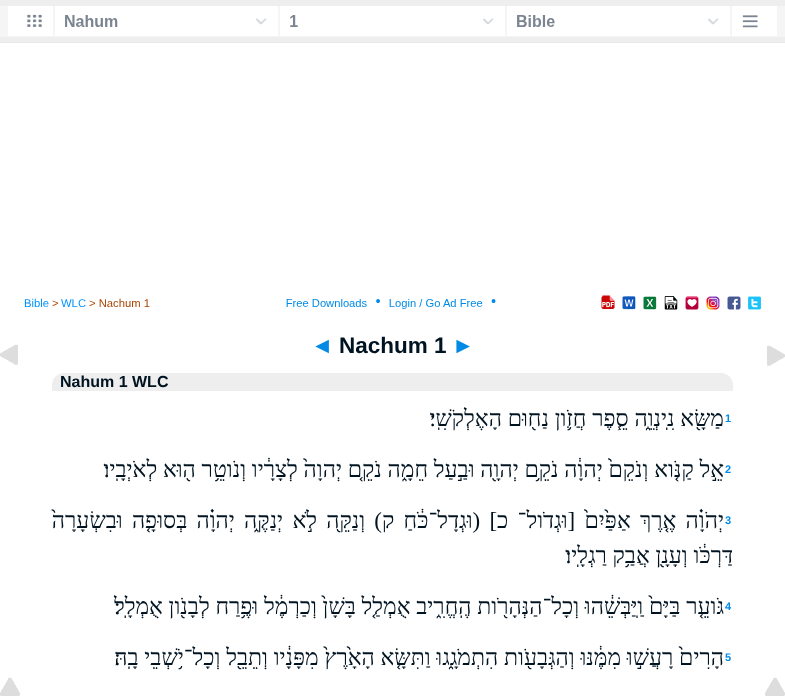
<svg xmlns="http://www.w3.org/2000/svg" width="785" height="696">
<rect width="100%" height="100%" fill="#fff"/>
<rect y="42" width="785" height="1" fill="#e8e8e8"/>
<rect width="785" height="42" fill="#eee"/>
<rect y="6" width="785" height="31" fill="#f5f5f5"/>
<image x="8" y="6" width="769" height="30" href="media/1.png"/>
<image x="601" y="295" width="160" height="15" href="media/2.png"/>
<image x="286" y="299" width="210" height="10" href="media/3.png"/>
<text x="89" y="307" style="font-family:Liberation Sans;font-size:11.25px;fill:#a40">&gt; Nachum 1</text>
<text x="61" y="307" style="font-family:Liberation Sans;font-size:11.25px;fill:#0092ff">WLC</text>
<text x="52" y="307" style="font-family:Liberation Sans;font-size:11.25px;fill:#a40">&gt;</text>
<text x="24" y="307" style="font-family:Liberation Sans;font-size:11.25px;fill:#0092ff">Bible</text>
<image x="767" y="345" width="18" height="21" href="media/4.png"/>
<text x="452" y="353" style="font-family:Liberation Sans;font-size:22.5px;font-weight:bold;fill:#008ae6">►</text>
<text x="339" y="353" style="font-family:Liberation Sans;font-size:22.5px;font-weight:bold;fill:#001320">Nachum 1</text>
<text x="311" y="353" style="font-family:Liberation Sans;font-size:22.5px;font-weight:bold;fill:#008ae6">◄</text>
<image x="0" y="344" width="18" height="21" href="media/5.png"/>
<path d="M64 373h657c6.5 0 12 5.5 12 12v6h-681v-6c0-6.5 5.5-12 12-12z" fill="#eee"/>
<text x="60" y="387" style="font-family:Liberation Sans;font-size:16px;font-weight:bold;fill:#001320">Nahum 1 WLC</text>
<text x="725" y="422" style="font-family:Liberation Sans;font-size:11px;font-weight:bold;fill:#008ae6">1</text>
<text x="724" y="426" style="font-family:Liberation Serif;font-size:23px;direction:rtl;fill:#001320">מַשָּׂ֖א נִֽינְוֵ֑ה סֵ֧פֶר חֲזֹ֛ון נַח֖וּם הָאֶלְקֹשִֽׁי׃</text>
<text x="725" y="473" style="font-family:Liberation Sans;font-size:11px;font-weight:bold;fill:#008ae6">2</text>
<text x="724" y="477" style="font-family:Liberation Serif;font-size:23px;direction:rtl;fill:#001320">אֵ֣ל קַנֹּ֤וא וְנֹקֵם֙ יְהוָ֔ה נֹקֵ֥ם יְהוָ֖ה וּבַ֣עַל חֵמָ֑ה נֹקֵ֤ם יְהוָה֙ לְצָרָ֔יו וְנֹוטֵ֥ר ה֖וּא לְאֹיְבָֽיו׃</text>
<text x="725" y="524" style="font-family:Liberation Sans;font-size:11px;font-weight:bold;fill:#008ae6">3</text>
<text x="724" y="528" word-spacing="3.5" style="font-family:Liberation Serif;font-size:23px;direction:rtl;fill:#001320">יְהֹוָ֗ה אֶ֤רֶךְ אַפַּ֙יִם֙ [וּגְדֹול־ כ] (וּגְדָל־כֹּ֔חַ ק) וְנַקֵּ֖ה לֹ֣א יְנַקֶּ֑ה יְהוָ֗ה בְּסוּפָ֤ה וּבִשְׂעָרָה֙</text>
<text x="733" y="563" style="font-family:Liberation Serif;font-size:23px;direction:rtl;fill:#001320">דַּרְכֹּ֔ו וְעָנָ֖ן אֲבַ֥ק רַגְלָֽיו׃</text>
<text x="725" y="610" style="font-family:Liberation Sans;font-size:11px;font-weight:bold;fill:#008ae6">4</text>
<text x="724" y="614" style="font-family:Liberation Serif;font-size:23px;direction:rtl;fill:#001320">גֹּועֵ֤ר בַּיָּם֙ וַֽיַּבְּשֵׁ֔הוּ וְכָל־הַנְּהָרֹ֖ות הֶֽחֱרִ֑יב אֻמְלַ֤ל בָּשָׁן֙ וְכַרְמֶ֔ל וּפֶ֥רַח לְבָנֹ֖ון אֻמְלָֽל׃</text>
<text x="725" y="661" style="font-family:Liberation Sans;font-size:11px;font-weight:bold;fill:#008ae6">5</text>
<text x="724" y="665" style="font-family:Liberation Serif;font-size:23px;direction:rtl;fill:#001320">הָרִים֙ רָעֲשׁ֣וּ מִמֶּ֔נּוּ וְהַגְּבָעֹ֖ות הִתְמֹגָ֑גוּ וַתִּשָּׂ֤א הָאָ֙רֶץ֙ מִפָּנָ֔יו וְתֵבֵ֖ל וְכָל־יֹ֥שְׁבֵי בָֽהּ׃</text>
<image x="765" y="677" width="20" height="19" href="media/6.png"/>
<image x="0" y="677" width="20" height="19" href="media/6.png"/>
</svg>
